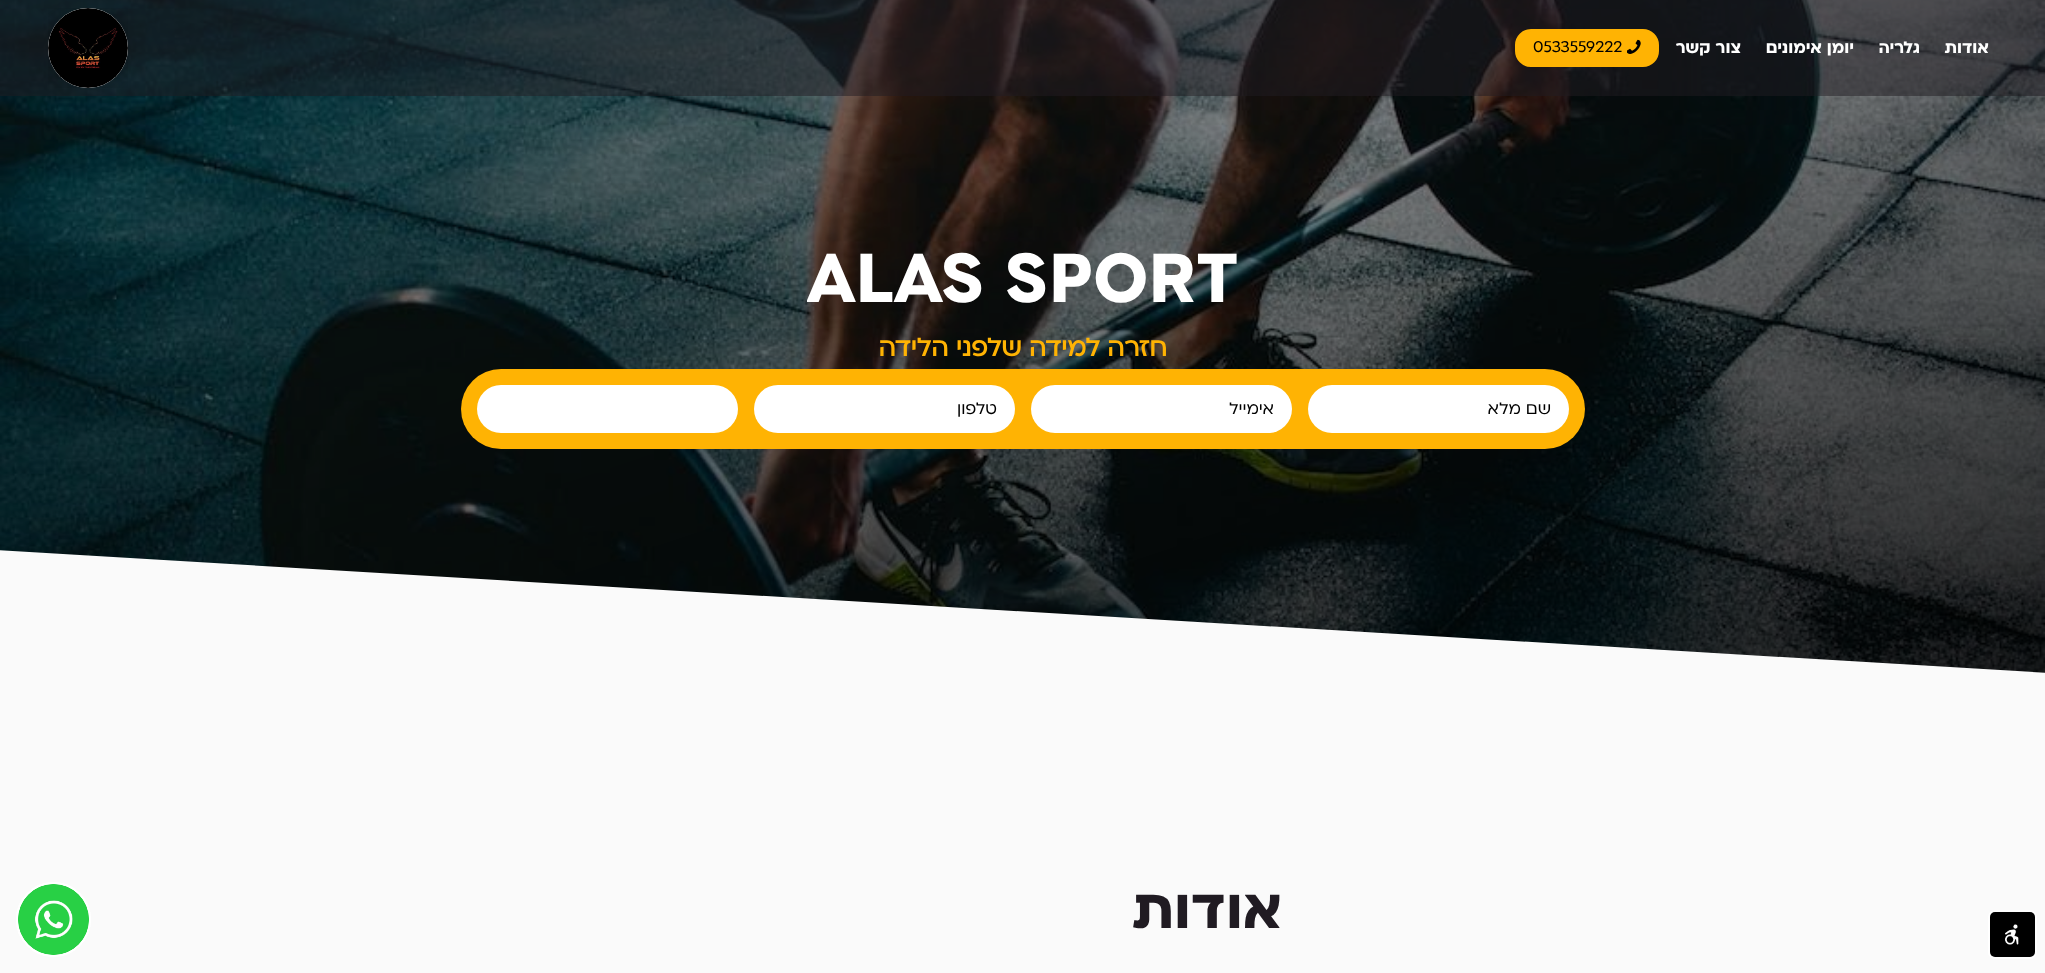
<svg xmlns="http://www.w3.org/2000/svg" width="2045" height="973">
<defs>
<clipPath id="clip1"><rect x="807" y="232" width="432" height="96"/></clipPath>
</defs>
<rect width="100%" height="100%" fill="#fff"/>
<image x="0" y="0" width="2045" height="673" href="media/3.png"/>
<rect width="2045" height="96" fill="#201b2280"/>
<text x="1989" y="53" style="font-family:'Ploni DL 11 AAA';font-size:19px;font-weight:bold;direction:rtl;fill:#fff">אודות</text>
<text x="1920" y="53" style="font-family:'Ploni DL 11 AAA';font-size:19px;font-weight:bold;direction:rtl;fill:#fff">גלריה</text>
<text x="1854" y="53" style="font-family:'Ploni DL 11 AAA';font-size:19px;font-weight:bold;direction:rtl;fill:#fff">יומן אימונים</text>
<text x="1741" y="53" style="font-family:'Ploni DL 11 AAA';font-size:19px;font-weight:bold;direction:rtl;fill:#fff">צור קשר</text>
<rect x="1516" y="30" width="142" height="36" rx="15" fill="#ffb303" stroke="#ffb303" stroke-width="2"/>
<image x="1627" y="39" width="14" height="15" href="media/1.png"/>
<text x="1533" y="52" style="font-family:'Ploni DL 11 AAA';font-size:18px;fill:#000">0533559222</text>
<circle cx="88" cy="48" r="40" fill="#fff"/>
<image x="48" y="8" width="80" height="80" href="media/2.png"/>
<g clip-path="url(#clip1)">
<text x="807" y="302" style="font-family:'Ploni DL 11 AAA';font-size:80px;font-weight:bold;fill:#fff">ALAS SPORT</text>
</g>
<text x="1167" y="356" style="font-family:'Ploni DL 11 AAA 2';font-size:28.75px;font-weight:bold;direction:rtl;fill:#ffb303">חזרה למידה שלפני הלידה</text>
<rect x="461" y="369" width="1124" height="80" rx="40" fill="#ffb303"/>
<rect x="1308" y="385" width="261" height="48" rx="24" fill="#fff"/>
<text x="1551" y="414" style="font-family:'Ploni DL 11 AAA';font-size:19px;direction:rtl;fill:#000">שם מלא</text>
<rect x="1031" y="385" width="261" height="48" rx="24" fill="#fff"/>
<text x="1274" y="414" style="font-family:'Ploni DL 11 AAA';font-size:19px;direction:rtl;fill:#000">אימייל</text>
<rect x="754" y="385" width="261" height="48" rx="24" fill="#fff"/>
<text x="997" y="414" style="font-family:'Ploni DL 11 AAA';font-size:19px;direction:rtl;fill:#000">טלפון</text>
<rect x="477" y="385" width="261" height="48" rx="24" fill="#fff"/>
<path d="M-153 541v141h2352z" fill="#fafafa"/>
<rect y="682" width="2045" height="291" fill="#fafafa"/>
<circle cx="53.5" cy="919.5" r="36.5" fill="none" stroke="#fff" stroke-width="2"/>
<image x="18" y="884" width="71" height="71" href="media/4.png"/>
<text x="1282" y="928" style="font-family:'Ploni DL 11 AAA';font-size:64px;font-weight:bold;direction:rtl;fill:#201b22">אודות</text>
<circle cx="53.5" cy="919.5" r="36.5" fill="none" stroke="#fff" stroke-width="2"/>
<image x="18" y="884" width="71" height="71" href="media/5.png"/>
<rect x="1989" y="911" width="47" height="47" rx="6" fill="none" stroke="#fff" stroke-width="2"/>
<rect x="1990" y="912" width="45" height="45" rx="5" fill="#000"/>
<image x="2005" y="924" width="14" height="21" href="media/6.png"/>
</svg>
